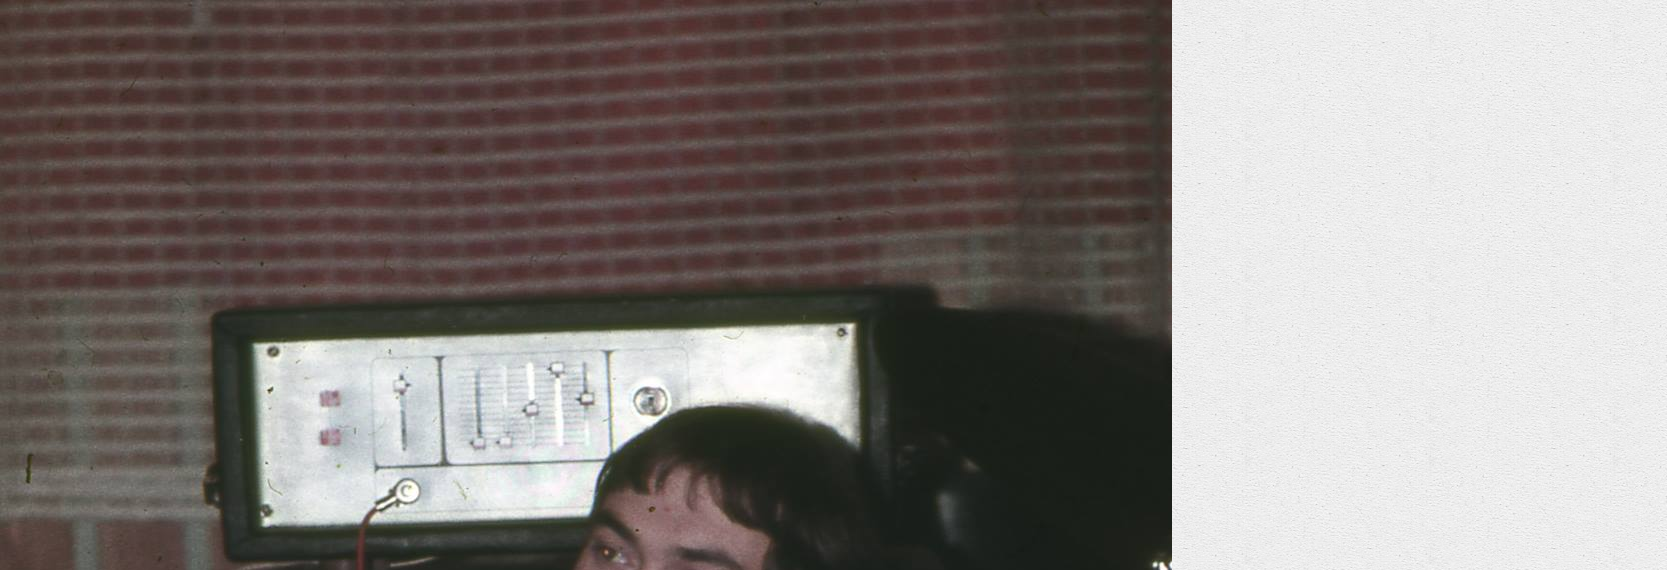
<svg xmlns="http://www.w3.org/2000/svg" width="1667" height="570">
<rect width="100%" height="100%" fill="#fff"/>
<image x="1172" y="0" width="495" height="570" href="media/1.png"/>
<image x="0" y="0" width="1172" height="570" href="media/2.png"/>
</svg>
